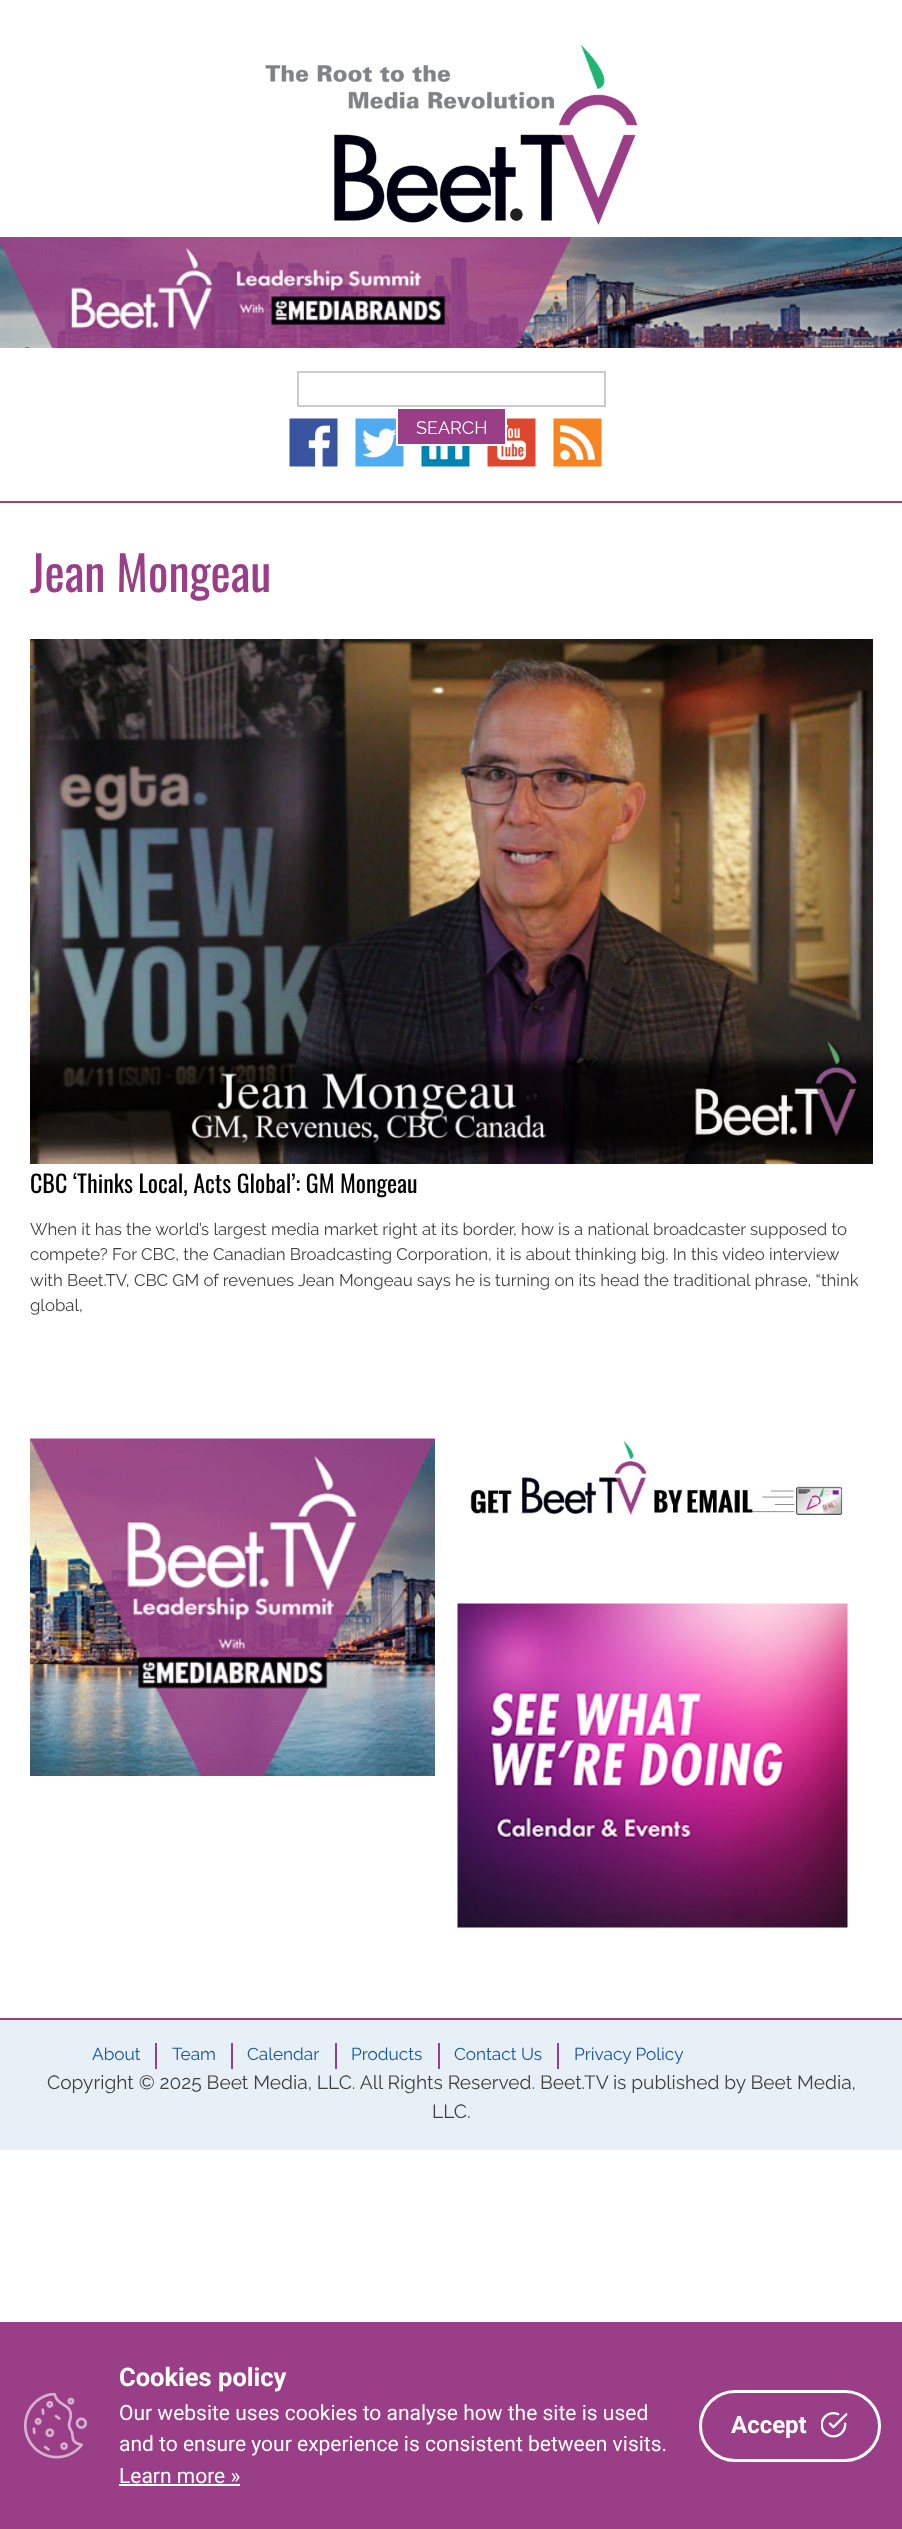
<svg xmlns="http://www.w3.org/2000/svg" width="902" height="2529">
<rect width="100%" height="100%" fill="#fff"/>
<rect y="501" width="902" height="2" fill="#9a3e87"/>
<image x="265" y="45" width="373" height="180" href="media/1.png"/>
<image x="0" y="237" width="902" height="111" href="media/2.png"/>
<image x="289" y="418" width="49" height="49" href="media/3.png"/>
<image x="355" y="418" width="49" height="49" href="media/4.png"/>
<image x="421" y="446" width="49" height="21" href="media/5.png"/>
<image x="487" y="418" width="49" height="49" href="media/6.png"/>
<image x="553" y="418" width="49" height="49" href="media/7.png"/>
<rect x="298" y="372" width="307" height="34" fill="none" stroke="#ccc" stroke-width="2"/>
<rect x="397" y="408" width="109" height="37" fill="#9a3e87" stroke="#fff" stroke-width="2"/>
<text x="416" y="434" style="font-family:Raleway;font-size:18px;fill:#fff">SEARCH</text>
<text x="30" y="592" style="font-family:Oswald;font-size:48px;fill:#9a3e87">Jean Mongeau</text>
<image x="30" y="639" width="843" height="525" href="media/8.png"/>
<rect x="30" y="666" width="6" height="2" fill="#1456a5"/>
<text x="30" y="1193" style="font-family:Oswald;font-size:24px;fill:#000">CBC ‘Thinks Local, Acts Global’: GM Mongeau</text>
<text x="30" y="1235" style="font-family:Raleway;font-size:16.8px;fill:#404040">When it has the world’s largest media market right at its border, how is a national broadcaster supposed to</text>
<text x="30" y="1260" style="font-family:Raleway;font-size:16.8px;fill:#404040">compete? For CBC, the Canadian Broadcasting Corporation, it is about thinking big. In this video interview</text>
<text x="30" y="1286" style="font-family:Raleway;font-size:16.8px;fill:#404040">with Beet.TV, CBC GM of revenues Jean Mongeau says he is turning on its head the traditional phrase, “think</text>
<text x="30" y="1311" style="font-family:Raleway;font-size:16.8px;fill:#404040">global,</text>
<image x="30" y="1438" width="405" height="338" href="media/9.png"/>
<image x="470" y="1438" width="374" height="82" href="media/10.png"/>
<image x="457" y="1603" width="391" height="325" href="media/11.png"/>
<rect y="2020" width="902" height="130" fill="#e6f0f6"/>
<rect y="2018" width="902" height="2" fill="#993d86"/>
<rect x="155" y="2043" width="2" height="26" fill="#9a3e87"/>
<text x="92" y="2060" style="font-family:Raleway;font-size:17.25px;fill:#1456a5">About</text>
<rect x="231" y="2043" width="2" height="26" fill="#9a3e87"/>
<text x="172" y="2060" style="font-family:Raleway;font-size:17.25px;fill:#1456a5">Team</text>
<rect x="335" y="2043" width="2" height="26" fill="#9a3e87"/>
<text x="247" y="2060" style="font-family:Raleway;font-size:17.25px;fill:#1456a5">Calendar</text>
<rect x="438" y="2043" width="2" height="26" fill="#9a3e87"/>
<text x="351" y="2060" style="font-family:Raleway;font-size:17.25px;fill:#1456a5">Products</text>
<rect x="557" y="2043" width="2" height="26" fill="#9a3e87"/>
<text x="454" y="2060" style="font-family:Raleway;font-size:17.25px;fill:#1456a5">Contact Us</text>
<text x="574" y="2060" style="font-family:Raleway;font-size:17.25px;fill:#1456a5">Privacy Policy</text>
<text x="47" y="2089" style="font-family:Raleway;font-size:19.2px;fill:#404040">Copyright © 2025 Beet Media, LLC. All Rights Reserved. Beet.TV is published by Beet Media,</text>
<text x="432" y="2118" style="font-family:Raleway;font-size:19.2px;fill:#404040">LLC.</text>
<rect y="2322" width="902" height="207" fill="#9a3e87"/>
<image x="23" y="2393" width="64" height="66" href="media/12.png"/>
<text x="119" y="2386" style="font-family:Roboto;font-size:25.5px;font-weight:bold;fill:#fff">Cookies policy</text>
<text x="119" y="2420" style="font-family:Roboto;font-size:21px;fill:#fff">Our website uses cookies to analyse how the site is used</text>
<text x="119" y="2451" style="font-family:Roboto;font-size:21px;fill:#fff">and to ensure your experience is consistent between visits.</text>
<text x="119" y="2483" style="font-family:Roboto;font-size:21px;fill:#fff">Learn more »</text>
<rect x="119" y="2484" width="121" height="2" fill="#fff"/>
<rect x="700.5" y="2391.5" width="179" height="69" rx="34.5" fill="none" stroke="#fff" stroke-width="3"/>
<text x="731" y="2433" style="font-family:Roboto;font-size:24px;font-weight:bold;fill:#fff">Accept</text>
<image x="821" y="2412" width="27" height="26" href="media/13.png"/>
</svg>
